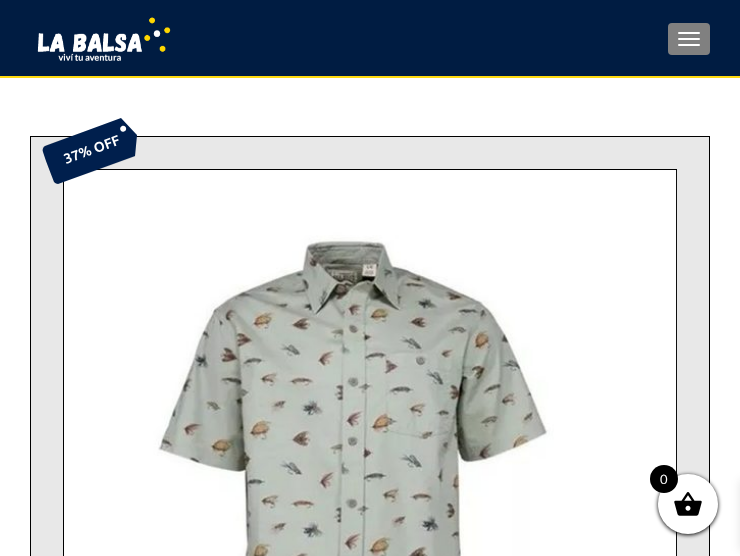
<svg xmlns="http://www.w3.org/2000/svg" width="740" height="556">
<defs>
<clipPath id="clip1"><path d="M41 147l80-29l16 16l-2 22.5l-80 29z"/></clipPath>
</defs>
<rect width="100%" height="100%" fill="#fff"/>
<rect width="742" height="78" fill="#ffda10" filter="blur(0.5px)"/>
<rect width="740" height="76" fill="#001c42"/>
<image x="37" y="17" width="134" height="44" href="media/1.png"/>
<rect x="668" y="23" width="42" height="32" rx="4" fill="#808080"/>
<rect x="678" y="32" width="22" height="2" rx="1" fill="#fff"/>
<rect x="678" y="38" width="22" height="2" rx="1" fill="#fff"/>
<rect x="678" y="44" width="22" height="2" rx="1" fill="#fff"/>
<rect x="30.5" y="136.5" width="679" height="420" fill="#e8e8e8" stroke="#000"/>
<rect x="63.5" y="169.5" width="613" height="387" fill="none" stroke="#000"/>
<image x="64" y="170" width="613" height="386" href="media/2.png"/>
<g clip-path="url(#clip1)">
<rect x="45" y="134" width="95" height="41" rx="5" fill="#00000026" filter="blur(3px)"/>
</g>
<path d="M46 161l-3-9c-1-2 0-5 2-6l76-28l15 16l1 1l-2 21l-77 28c-1 0-3-1-4-2z" fill="#001f4d"/>
<path d="M122 126c4-1.5 6 4.5 2 5.5c-3.5 1.5-5.5-4-2-5.5z" fill="#fff"/>
<text x="66" y="164" transform="rotate(-20 66 164)" style="font-family:Ubuntu;font-size:14px;font-weight:bold;fill:#fff">37% OFF</text>
<rect x="658" y="475" width="60" height="60" rx="30" fill="#000" filter="blur(2px)"/>
<circle cx="688" cy="504" r="30" fill="#fff"/>
<image x="674" y="492" width="28" height="24" href="media/3.png"/>
<circle cx="664" cy="479" r="14" fill="#000"/>
<text x="660" y="484" style="font-family:Lato;font-size:13px;fill:#fff">0</text>
<rect x="740" y="480" width="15" height="71" fill="#0000001a" filter="blur(5px)"/>
</svg>
